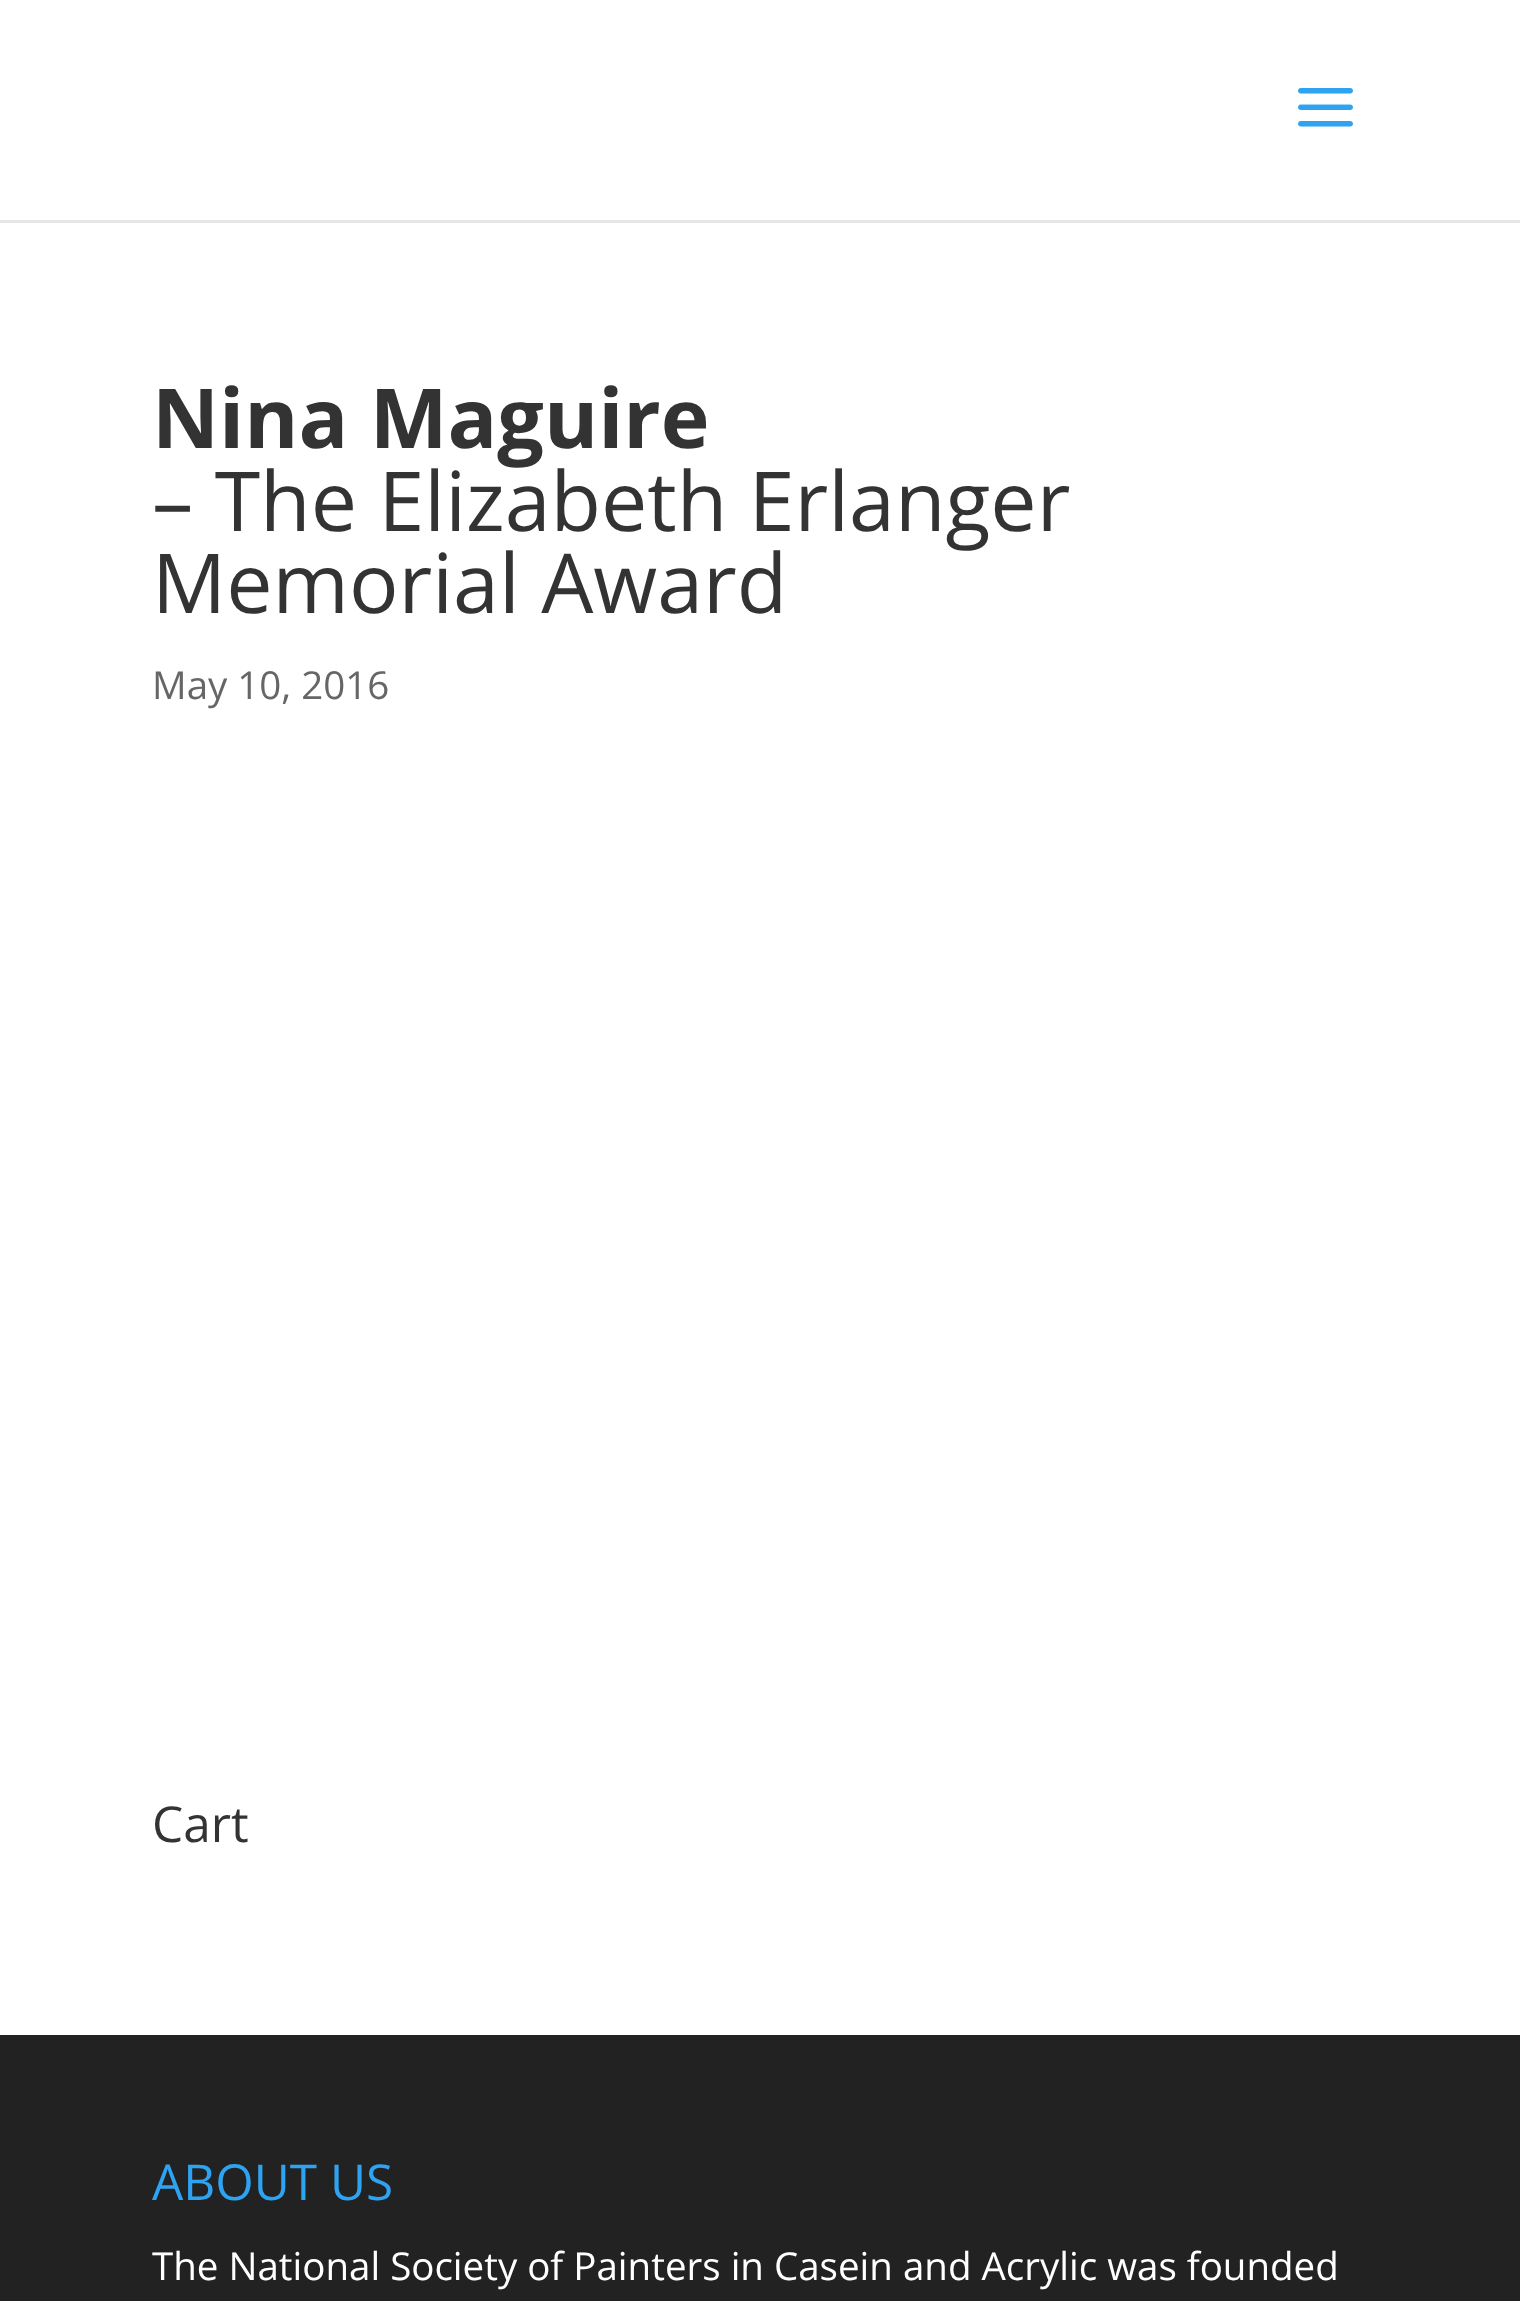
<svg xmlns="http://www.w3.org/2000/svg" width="1520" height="2301">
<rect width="100%" height="100%" fill="#fff"/>
<path d="M0 220v3h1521v-220v217z" fill="#e6e6e6"/>
<image x="1298" y="88" width="55" height="39" href="media/1.png"/>
<text x="152" y="448" style="font-family:Open Sans;font-size:82.5px;font-weight:bold;fill:#333">Nina Maguire</text>
<text x="152" y="531" style="font-family:Open Sans;font-size:82.5px;fill:#333">– The Elizabeth Erlanger</text>
<text x="152" y="613" style="font-family:Open Sans;font-size:82.5px;fill:#333">Memorial Award</text>
<text x="152" y="699" style="font-family:Open Sans;font-size:38.5px;fill:#666">May 10, 2016</text>
<text x="152" y="1842" style="font-family:Open Sans;font-size:49.5px;fill:#333">Cart</text>
<rect y="2035" width="1520" height="266" fill="#222"/>
<text x="152" y="2200" style="font-family:Open Sans;font-size:49.5px;fill:#2ea3f2">ABOUT US</text>
<text x="152" y="2280" style="font-family:Open Sans;font-size:38.5px;fill:#fff">The National Society of Painters in Casein and Acrylic was founded</text>
</svg>
